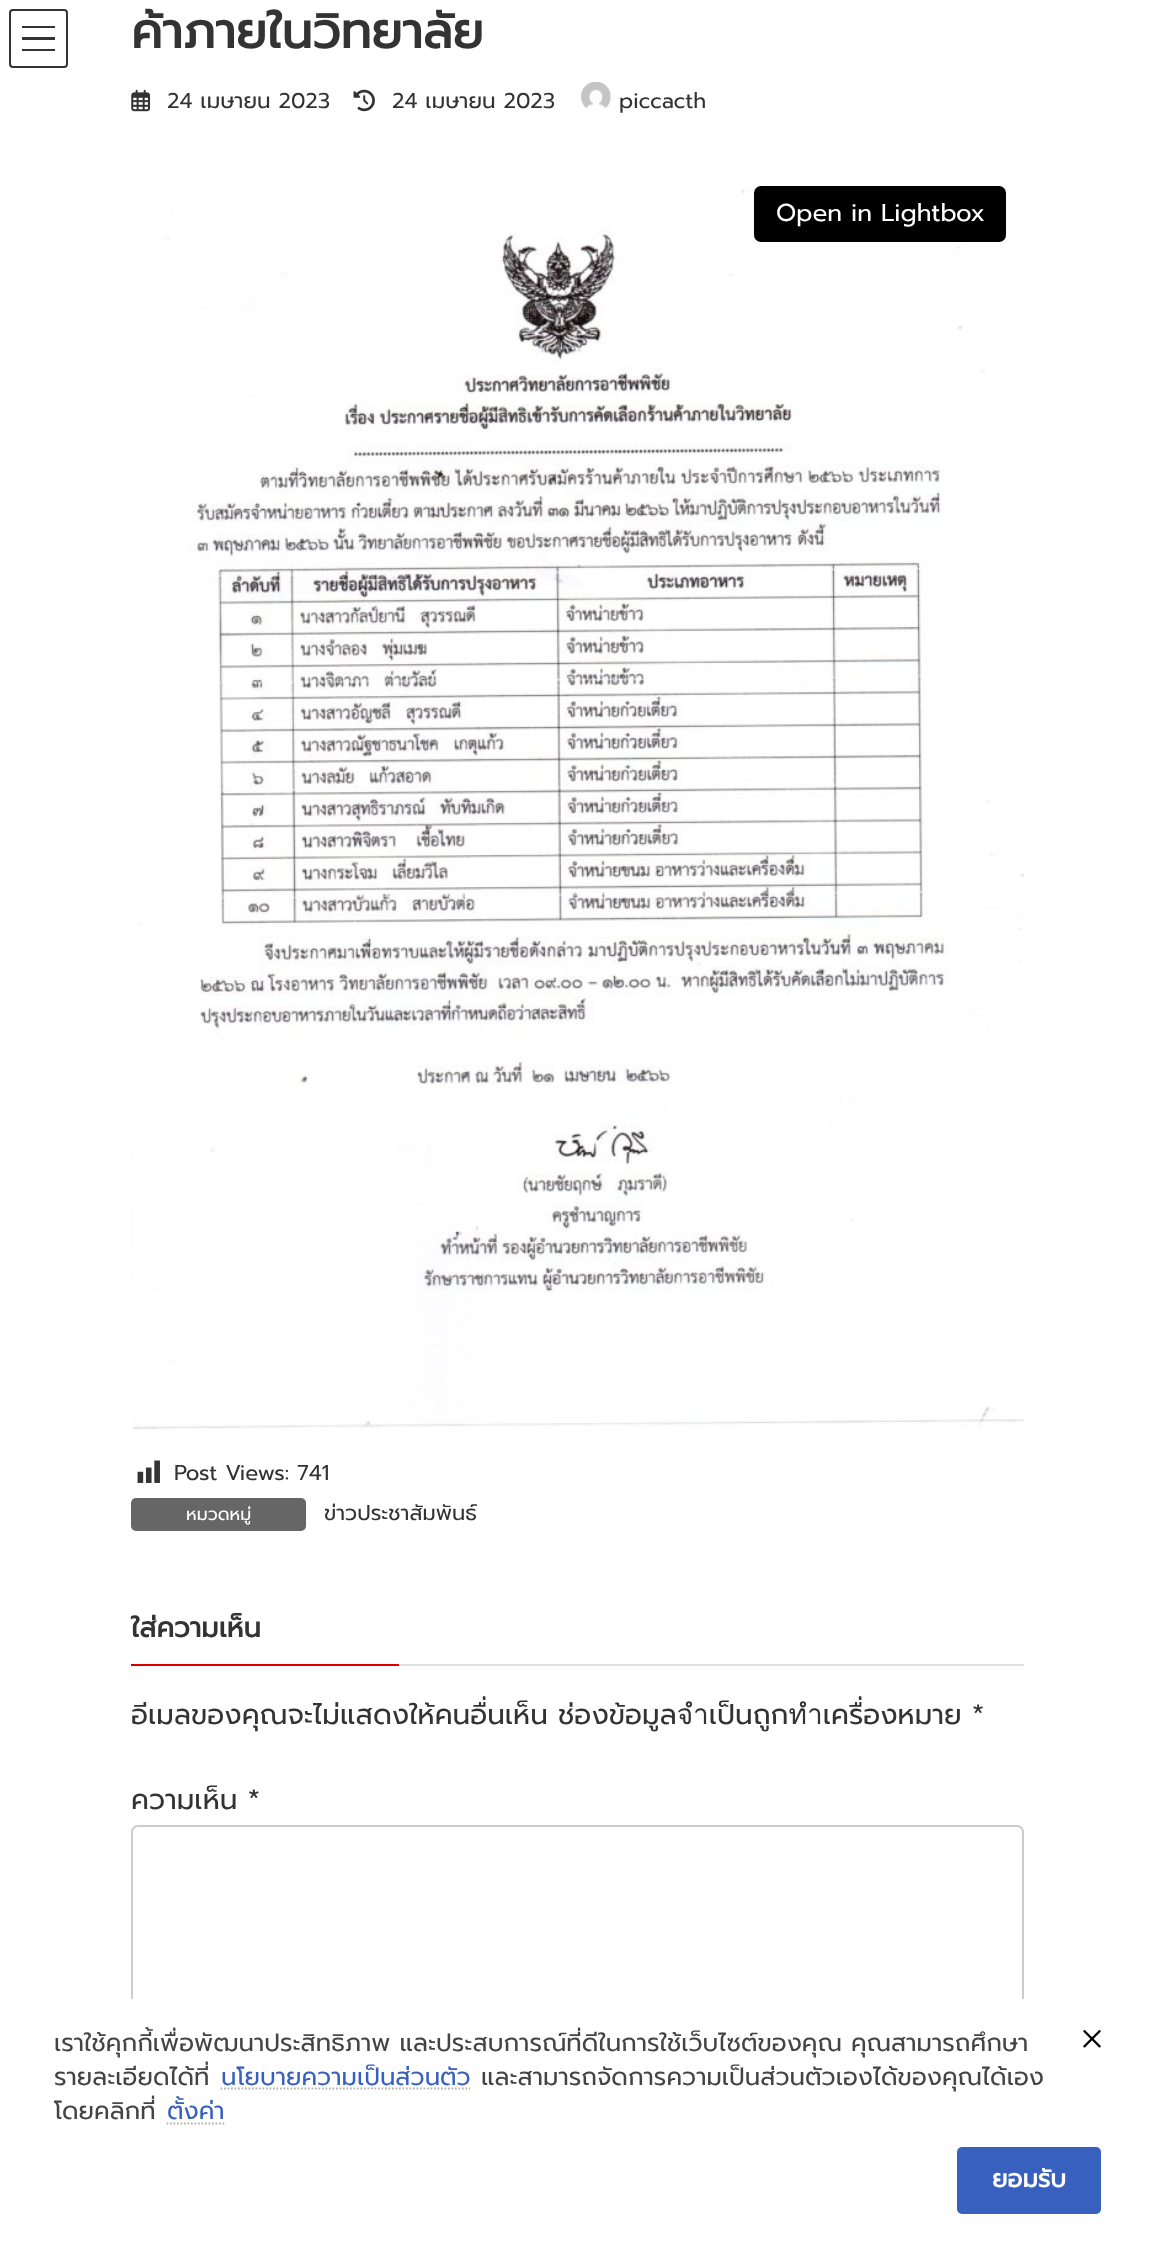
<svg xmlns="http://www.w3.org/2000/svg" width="1154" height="2241">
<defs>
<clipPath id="clip1"><rect x="324" y="1498" width="700" height="33"/></clipPath>
<clipPath id="clip2"><rect x="131" y="1610" width="893" height="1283"/></clipPath>
</defs>
<rect width="100%" height="100%" fill="#fff"/>
<rect x="22" y="26" width="33" height="2" fill="#333"/>
<rect x="22" y="37" width="33" height="3" fill="#333"/>
<rect x="22" y="49" width="33" height="2" fill="#333"/>
<rect x="10" y="10" width="57" height="57" rx="3" fill="none" stroke="#333" stroke-width="2"/>
<text x="131" y="48" style="font-family:Prompt;font-size:49px;font-weight:bold;fill:#333">ค้าภายในวิทยาลัย</text>
<image x="131" y="89" width="19" height="23" href="media/1.png"/>
<text x="167" y="108" style="font-family:Prompt;font-size:21.5px;fill:#333">24 เมษายน 2023</text>
<image x="353" y="89" width="22" height="23" href="media/2.png"/>
<text x="392" y="108" style="font-family:Prompt;font-size:21.5px;fill:#333">24 เมษายน 2023</text>
<image x="581" y="82" width="30" height="27" href="media/3.png"/>
<text x="619" y="108" style="font-family:Prompt;font-size:21.5px;fill:#333">piccacth</text>
<image x="131" y="176" width="893" height="1254" href="media/4.png"/>
<rect x="754" y="186" width="252" height="56" rx="7" fill="#000"/>
<text x="776" y="221" style="font-family:Prompt;font-size:24.5px;fill:#fff">Open in Lightbox</text>
<image x="137" y="1460" width="23" height="23" href="media/5.png"/>
<text x="174" y="1480" style="font-family:Prompt;font-size:21.5px;fill:#333">Post Views: 741</text>
<rect x="131" y="1498" width="175" height="33" rx="5" fill="#666"/>
<text x="186" y="1520" style="font-family:Prompt;font-size:17.5px;fill:#fff">หมวดหมู่</text>
<g clip-path="url(#clip1)">
<text x="324" y="1520" style="font-family:Prompt;font-size:21px;fill:#333">ข่าวประชาสัมพันธ์</text>
</g>
<rect x="399" y="1664" width="625" height="2" fill="#e0e0e0"/>
<text x="131" y="1637" style="font-family:Prompt;font-size:27.5px;font-weight:bold;fill:#333">ใส่ความเห็น</text>
<rect x="131" y="1664" width="268" height="2" fill="#d80000"/>
<g clip-path="url(#clip2)">
<text x="131" y="1724" style="font-family:Prompt;font-size:28px;fill:#333">อีเมลของคุณจะไม่แสดงให้คนอื่นเห็น</text>
</g>
<text x="558" y="1724" style="font-family:Prompt;font-size:28px;fill:#333">ช่องข้อมูลจำเป็นถูกทำเครื่องหมาย *</text>
<text x="131" y="1809" style="font-family:Prompt;font-size:28px;fill:#333">ความเห็น *</text>
<rect x="132" y="1826" width="891" height="264" rx="6" fill="none" stroke="#ccc" stroke-width="2"/>
<rect x="131" y="1999" width="893" height="92" fill="#fff"/>
<text x="54" y="2051" style="font-family:Prompt;font-size:24.5px;fill:#444">เราใช้คุกกี้เพื่อพัฒนาประสิทธิภาพ และประสบการณ์ที่ดีในการใช้เว็บไซต์ของคุณ คุณสามารถศึกษา</text>
<text x="54" y="2085" style="font-family:Prompt;font-size:24.5px;fill:#444">รายละเอียดได้ที่</text>
<text x="221" y="2085" style="font-family:Prompt;font-size:24.5px;fill:#3860be">นโยบายความเป็นส่วนตัว</text>
<path d="M220.5 2088.5h249.5" fill="none" stroke="#b3b3b3" stroke-width="1.8" stroke-dasharray="1.75 1.75"/>
<text x="481" y="2085" style="font-family:Prompt;font-size:24.5px;fill:#444">และสามารถจัดการความเป็นส่วนตัวเองได้ของคุณได้เอง</text>
<text x="54" y="2119" style="font-family:Prompt;font-size:24.5px;fill:#444">โดยคลิกที่</text>
<text x="167" y="2119" style="font-family:Prompt;font-size:24.5px;fill:#3860be">ตั้งค่า</text>
<path d="M166.5 2123.5h58" fill="none" stroke="#b3b3b3" stroke-width="1.8" stroke-dasharray="1.75 1.75"/>
<image x="1083" y="2030" width="18" height="18" href="media/6.png"/>
<rect x="957" y="2147" width="144" height="67" rx="5" fill="#3860be"/>
<text x="992" y="2187" style="font-family:Prompt;font-size:24.5px;font-weight:bold;fill:#fff">ยอมรับ</text>
</svg>
